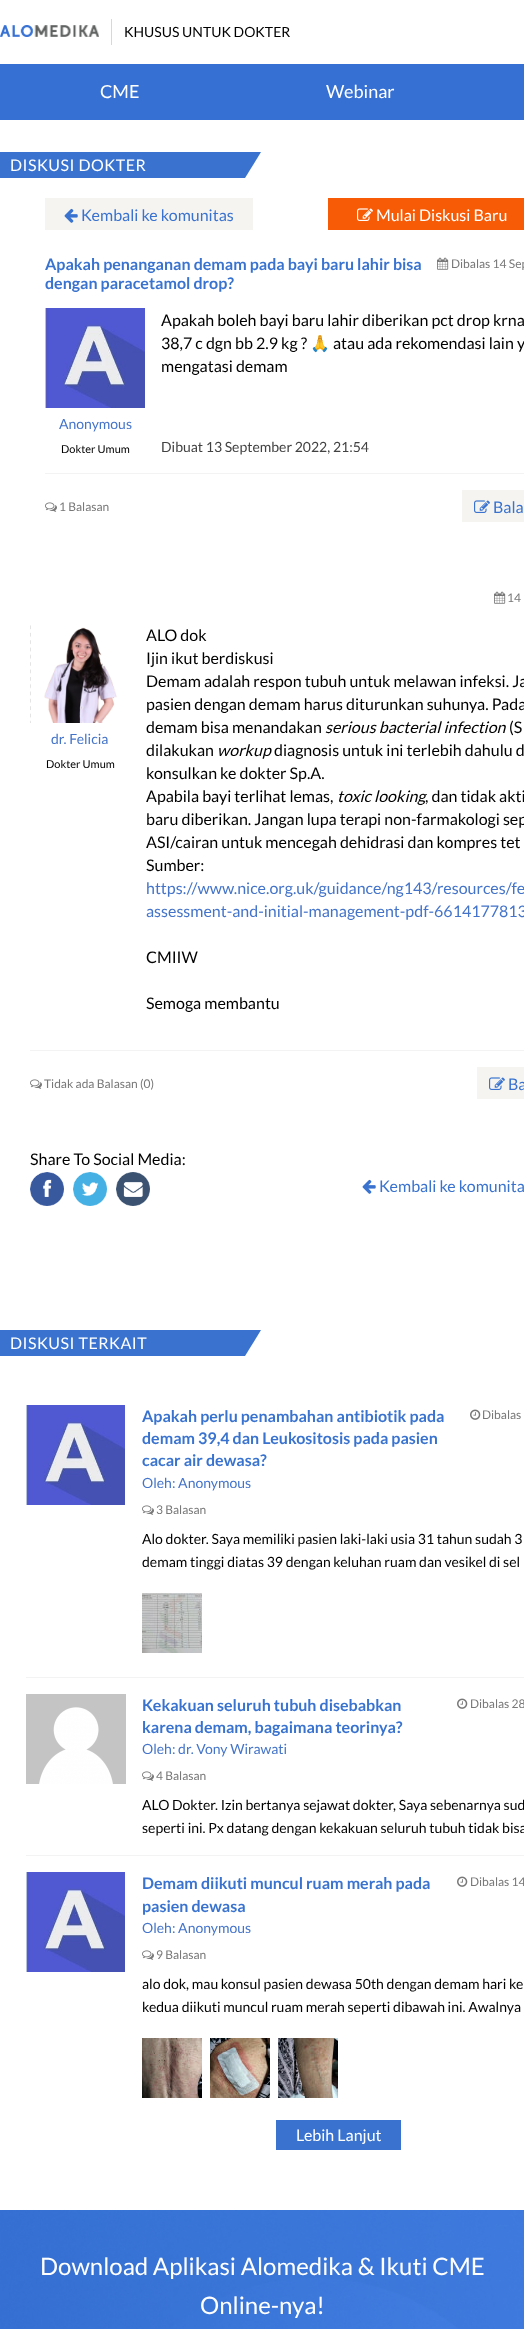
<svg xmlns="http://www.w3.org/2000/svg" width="524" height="2329">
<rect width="100%" height="100%" fill="#fff"/>
<image x="0" y="25" width="99" height="12" href="media/1.png"/>
<rect x="111" y="19" width="1" height="26" fill="#d8d8d8"/>
<text x="124" y="37" style="font-family:Lato;font-size:14px;fill:#000">KHUSUS UNTUK DOKTER</text>
<rect y="64" width="524" height="56" fill="#3570d2"/>
<text x="100" y="98" style="font-family:Lato;font-size:18px;fill:#fff">CME</text>
<text x="326" y="98" style="font-family:Lato;font-size:18px;fill:#fff">Webinar</text>
<rect y="152" width="245" height="26" fill="#3973cf"/>
<text x="10" y="171" style="font-family:Lato;font-size:16px;letter-spacing:0.5px;fill:#fff">DISKUSI DOKTER</text>
<path d="M245 178v-26h16z" fill="#3973cf"/>
<rect x="45" y="198" width="208" height="32" fill="#f6f4f1"/>
<image x="64" y="208" width="14" height="15" href="media/2.png"/>
<text x="81" y="221" style="font-family:Lato;font-size:16px;fill:#3973cf">Kembali ke komunitas</text>
<rect x="328" y="198" width="196" height="32" fill="#f85b06"/>
<image x="357" y="208" width="16" height="13" href="media/3.png"/>
<text x="376" y="221" style="font-family:Lato;font-size:16px;fill:#fff">Mulai Diskusi Baru</text>
<text x="45" y="270" style="font-family:Lato;font-size:16px;font-weight:bold;fill:#3973cf">Apakah penanganan demam pada bayi baru lahir bisa</text>
<text x="45" y="289" style="font-family:Lato;font-size:16px;font-weight:bold;fill:#3973cf">dengan paracetamol drop?</text>
<image x="437" y="257" width="12" height="13" href="media/4.png"/>
<text x="451" y="268" style="font-family:Lato;font-size:12px;fill:#787878">Dibalas 14 Sep</text>
<rect x="45" y="473" width="479" height="1" fill="#f3f3f3"/>
<image x="45" y="308" width="100" height="100" href="media/5.png"/>
<text x="59" y="429" style="font-family:Lato;font-size:14px;fill:#4474c9">Anonymous</text>
<text x="61" y="453" style="font-family:Lato;font-size:11px;fill:#000">Dokter Umum</text>
<text x="161" y="326" style="font-family:Lato;font-size:16px;fill:#000">Apakah boleh bayi baru lahir diberikan pct drop krna</text>
<text x="161" y="349" style="font-family:Lato;font-size:16px;fill:#000">38,7 c dgn bb 2.9 kg ?</text>
<text x="310" y="349" style="font-family:Noto Color Emoji;font-size:16px;fill:#000">🙏</text>
<text x="333" y="349" style="font-family:Lato;font-size:16px;fill:#000">atau ada rekomendasi lain y</text>
<text x="161" y="372" style="font-family:Lato;font-size:16px;fill:#000">mengatasi demam</text>
<text x="161" y="452" style="font-family:Lato;font-size:14px;fill:#424242">Dibuat 13 September 2022, 21:54</text>
<image x="45" y="502" width="12" height="10" href="media/6.png"/>
<text x="59" y="511" style="font-family:Lato;font-size:12px;fill:#787878">1 Balasan</text>
<rect x="462" y="490" width="62" height="32" fill="#f6f4f1"/>
<image x="474" y="500" width="16" height="13" href="media/7.png"/>
<text x="493" y="513" style="font-family:Lato;font-size:16px;fill:#3973cf">Bala</text>
<image x="494" y="591" width="12" height="13" href="media/4.png"/>
<text x="507" y="602" style="font-family:Lato;font-size:12px;fill:#787878">14</text>
<rect x="30" y="1050" width="494" height="1" fill="#f3f3f3"/>
<image x="30" y="625" width="87" height="98" href="media/8.png"/>
<text x="51" y="744" style="font-family:Lato;font-size:14px;fill:#4474c9">dr. Felicia</text>
<text x="46" y="768" style="font-family:Lato;font-size:11px;fill:#000">Dokter Umum</text>
<text x="146" y="641" style="font-family:Lato;font-size:16px;fill:#000">ALO dok</text>
<text x="146" y="664" style="font-family:Lato;font-size:16px;fill:#000">Ijin ikut berdiskusi</text>
<text x="146" y="687" style="font-family:Lato;font-size:16px;fill:#000">Demam adalah respon tubuh untuk melawan infeksi. Ja</text>
<text x="146" y="710" style="font-family:Lato;font-size:16px;fill:#000">pasien dengan demam harus diturunkan suhunya. Pada</text>
<text x="146" y="733" style="font-family:Lato;font-size:16px;fill:#000">demam bisa menandakan</text>
<text x="325" y="733" style="font-family:Lato;font-size:16px;font-style:italic;fill:#000">serious bacterial infection</text>
<text x="509" y="733" style="font-family:Lato;font-size:16px;fill:#000">(S</text>
<text x="146" y="756" style="font-family:Lato;font-size:16px;fill:#000">dilakukan</text>
<text x="217" y="756" style="font-family:Lato;font-size:16px;font-style:italic;fill:#000">workup</text>
<text x="274" y="756" style="font-family:Lato;font-size:16px;fill:#000">diagnosis untuk ini terlebih dahulu d</text>
<text x="146" y="779" style="font-family:Lato;font-size:16px;fill:#000">konsulkan ke dokter Sp.A.</text>
<text x="146" y="802" style="font-family:Lato;font-size:16px;fill:#000">Apabila bayi terlihat lemas,</text>
<text x="337" y="802" style="font-family:Lato;font-size:16px;font-style:italic;fill:#000">toxic looking</text>
<text x="425" y="802" style="font-family:Lato;font-size:16px;fill:#000">, dan tidak akti</text>
<text x="146" y="825" style="font-family:Lato;font-size:16px;fill:#000">baru diberikan. Jangan lupa terapi non-farmakologi sep</text>
<text x="146" y="848" style="font-family:Lato;font-size:16px;fill:#000">ASI/cairan untuk mencegah dehidrasi dan kompres tet</text>
<text x="146" y="871" style="font-family:Lato;font-size:16px;fill:#000">Sumber:</text>
<text x="146" y="894" style="font-family:Lato;font-size:16px;fill:#4474c9">https://www.nice.org.uk/guidance/ng143/resources/fe</text>
<text x="146" y="917" style="font-family:Lato;font-size:16px;fill:#4474c9">assessment-and-initial-management-pdf-6614177813</text>
<text x="146" y="963" style="font-family:Lato;font-size:16px;fill:#000">CMIIW</text>
<text x="146" y="1009" style="font-family:Lato;font-size:16px;fill:#000">Semoga membantu</text>
<image x="30" y="1079" width="12" height="10" href="media/6.png"/>
<text x="44" y="1088" style="font-family:Lato;font-size:12px;fill:#787878">Tidak ada Balasan (0)</text>
<rect x="477" y="1067" width="47" height="32" fill="#f6f4f1"/>
<image x="489" y="1077" width="16" height="13" href="media/7.png"/>
<text x="508" y="1090" style="font-family:Lato;font-size:16px;fill:#3973cf">Ba</text>
<text x="30" y="1165" style="font-family:Lato;font-size:16px;fill:#000">Share To Social Media:</text>
<image x="30" y="1172" width="34" height="34" href="media/9.png"/>
<image x="73" y="1172" width="34" height="34" href="media/10.png"/>
<image x="116" y="1172" width="34" height="34" href="media/11.png"/>
<image x="362" y="1179" width="14" height="15" href="media/12.png"/>
<text x="379" y="1192" style="font-family:Lato;font-size:16px;fill:#3973cf">Kembali ke komunita</text>
<rect y="1330" width="245" height="26" fill="#3973cf"/>
<text x="10" y="1349" style="font-family:Lato;font-size:16px;letter-spacing:0.5px;fill:#fff">DISKUSI TERKAIT</text>
<path d="M245 1356v-26h16z" fill="#3973cf"/>
<rect x="26" y="1677" width="498" height="1" fill="#f3f3f3"/>
<image x="26" y="1405" width="99" height="100" href="media/13.png"/>
<text x="142" y="1422" style="font-family:Lato;font-size:16px;font-weight:bold;fill:#3973cf">Apakah perlu penambahan antibiotik pada</text>
<text x="142" y="1444" style="font-family:Lato;font-size:16px;font-weight:bold;fill:#3973cf">demam 39,4 dan Leukositosis pada pasien</text>
<text x="142" y="1466" style="font-family:Lato;font-size:16px;font-weight:bold;fill:#3973cf">cacar air dewasa?</text>
<image x="470" y="1409" width="11" height="11" href="media/14.png"/>
<text x="482" y="1419" style="font-family:Lato;font-size:12px;fill:#787878">Dibalas</text>
<text x="142" y="1488" style="font-family:Lato;font-size:14px;fill:#4474c9">Oleh: Anonymous</text>
<image x="142" y="1505" width="12" height="10" href="media/6.png"/>
<text x="156" y="1514" style="font-family:Lato;font-size:12px;fill:#787878">3 Balasan</text>
<text x="142" y="1544" style="font-family:Lato;font-size:14px;fill:#000">Alo dokter. Saya memiliki pasien laki-laki usia 31 tahun sudah 3</text>
<text x="142" y="1567" style="font-family:Lato;font-size:14px;fill:#000">demam tinggi diatas 39 dengan keluhan ruam dan vesikel di sel</text>
<image x="142" y="1593" width="60" height="60" href="media/15.png"/>
<rect x="26" y="1855" width="498" height="1" fill="#f3f3f3"/>
<image x="26" y="1694" width="100" height="90" href="media/16.png"/>
<text x="142" y="1711" style="font-family:Lato;font-size:16px;font-weight:bold;fill:#3973cf">Kekakuan seluruh tubuh disebabkan</text>
<text x="142" y="1733" style="font-family:Lato;font-size:16px;font-weight:bold;fill:#3973cf">karena demam, bagaimana teorinya?</text>
<image x="457" y="1698" width="11" height="11" href="media/14.png"/>
<text x="470" y="1708" style="font-family:Lato;font-size:12px;fill:#787878">Dibalas 28</text>
<text x="142" y="1754" style="font-family:Lato;font-size:14px;fill:#4474c9">Oleh: dr. Vony Wirawati</text>
<image x="142" y="1771" width="12" height="10" href="media/6.png"/>
<text x="156" y="1780" style="font-family:Lato;font-size:12px;fill:#787878">4 Balasan</text>
<text x="142" y="1810" style="font-family:Lato;font-size:14px;fill:#000">ALO Dokter. Izin bertanya sejawat dokter, Saya sebenarnya sud</text>
<text x="142" y="1833" style="font-family:Lato;font-size:14px;fill:#000">seperti ini. Px datang dengan kekakuan seluruh tubuh tidak bisa</text>
<image x="26" y="1872" width="99" height="100" href="media/17.png"/>
<text x="142" y="1889" style="font-family:Lato;font-size:16px;font-weight:bold;fill:#3973cf">Demam diikuti muncul ruam merah pada</text>
<text x="142" y="1912" style="font-family:Lato;font-size:16px;font-weight:bold;fill:#3973cf">pasien dewasa</text>
<image x="457" y="1876" width="11" height="11" href="media/14.png"/>
<text x="470" y="1886" style="font-family:Lato;font-size:12px;fill:#787878">Dibalas 14</text>
<text x="142" y="1933" style="font-family:Lato;font-size:14px;fill:#4474c9">Oleh: Anonymous</text>
<image x="142" y="1950" width="12" height="10" href="media/6.png"/>
<text x="156" y="1959" style="font-family:Lato;font-size:12px;fill:#787878">9 Balasan</text>
<text x="142" y="1989" style="font-family:Lato;font-size:14px;fill:#000">alo dok, mau konsul pasien dewasa 50th dengan demam hari ke</text>
<text x="142" y="2012" style="font-family:Lato;font-size:14px;fill:#000">kedua diikuti muncul ruam merah seperti dibawah ini. Awalnya</text>
<image x="142" y="2038" width="60" height="60" href="media/18.png"/>
<image x="210" y="2038" width="60" height="60" href="media/19.png"/>
<image x="278" y="2038" width="60" height="60" href="media/20.png"/>
<rect x="276" y="2120" width="125" height="30" fill="#3973cf"/>
<text x="296" y="2141" style="font-family:Lato;font-size:16px;fill:#fff">Lebih Lanjut</text>
<image x="0" y="2210" width="524" height="119" href="media/21.png"/>
<text x="40" y="2275" style="font-family:Lato;font-size:24px;fill:#fff">Download Aplikasi Alomedika &amp; Ikuti CME</text>
<text x="200" y="2314" style="font-family:Lato;font-size:24px;fill:#fff">Online-nya!</text>
</svg>
